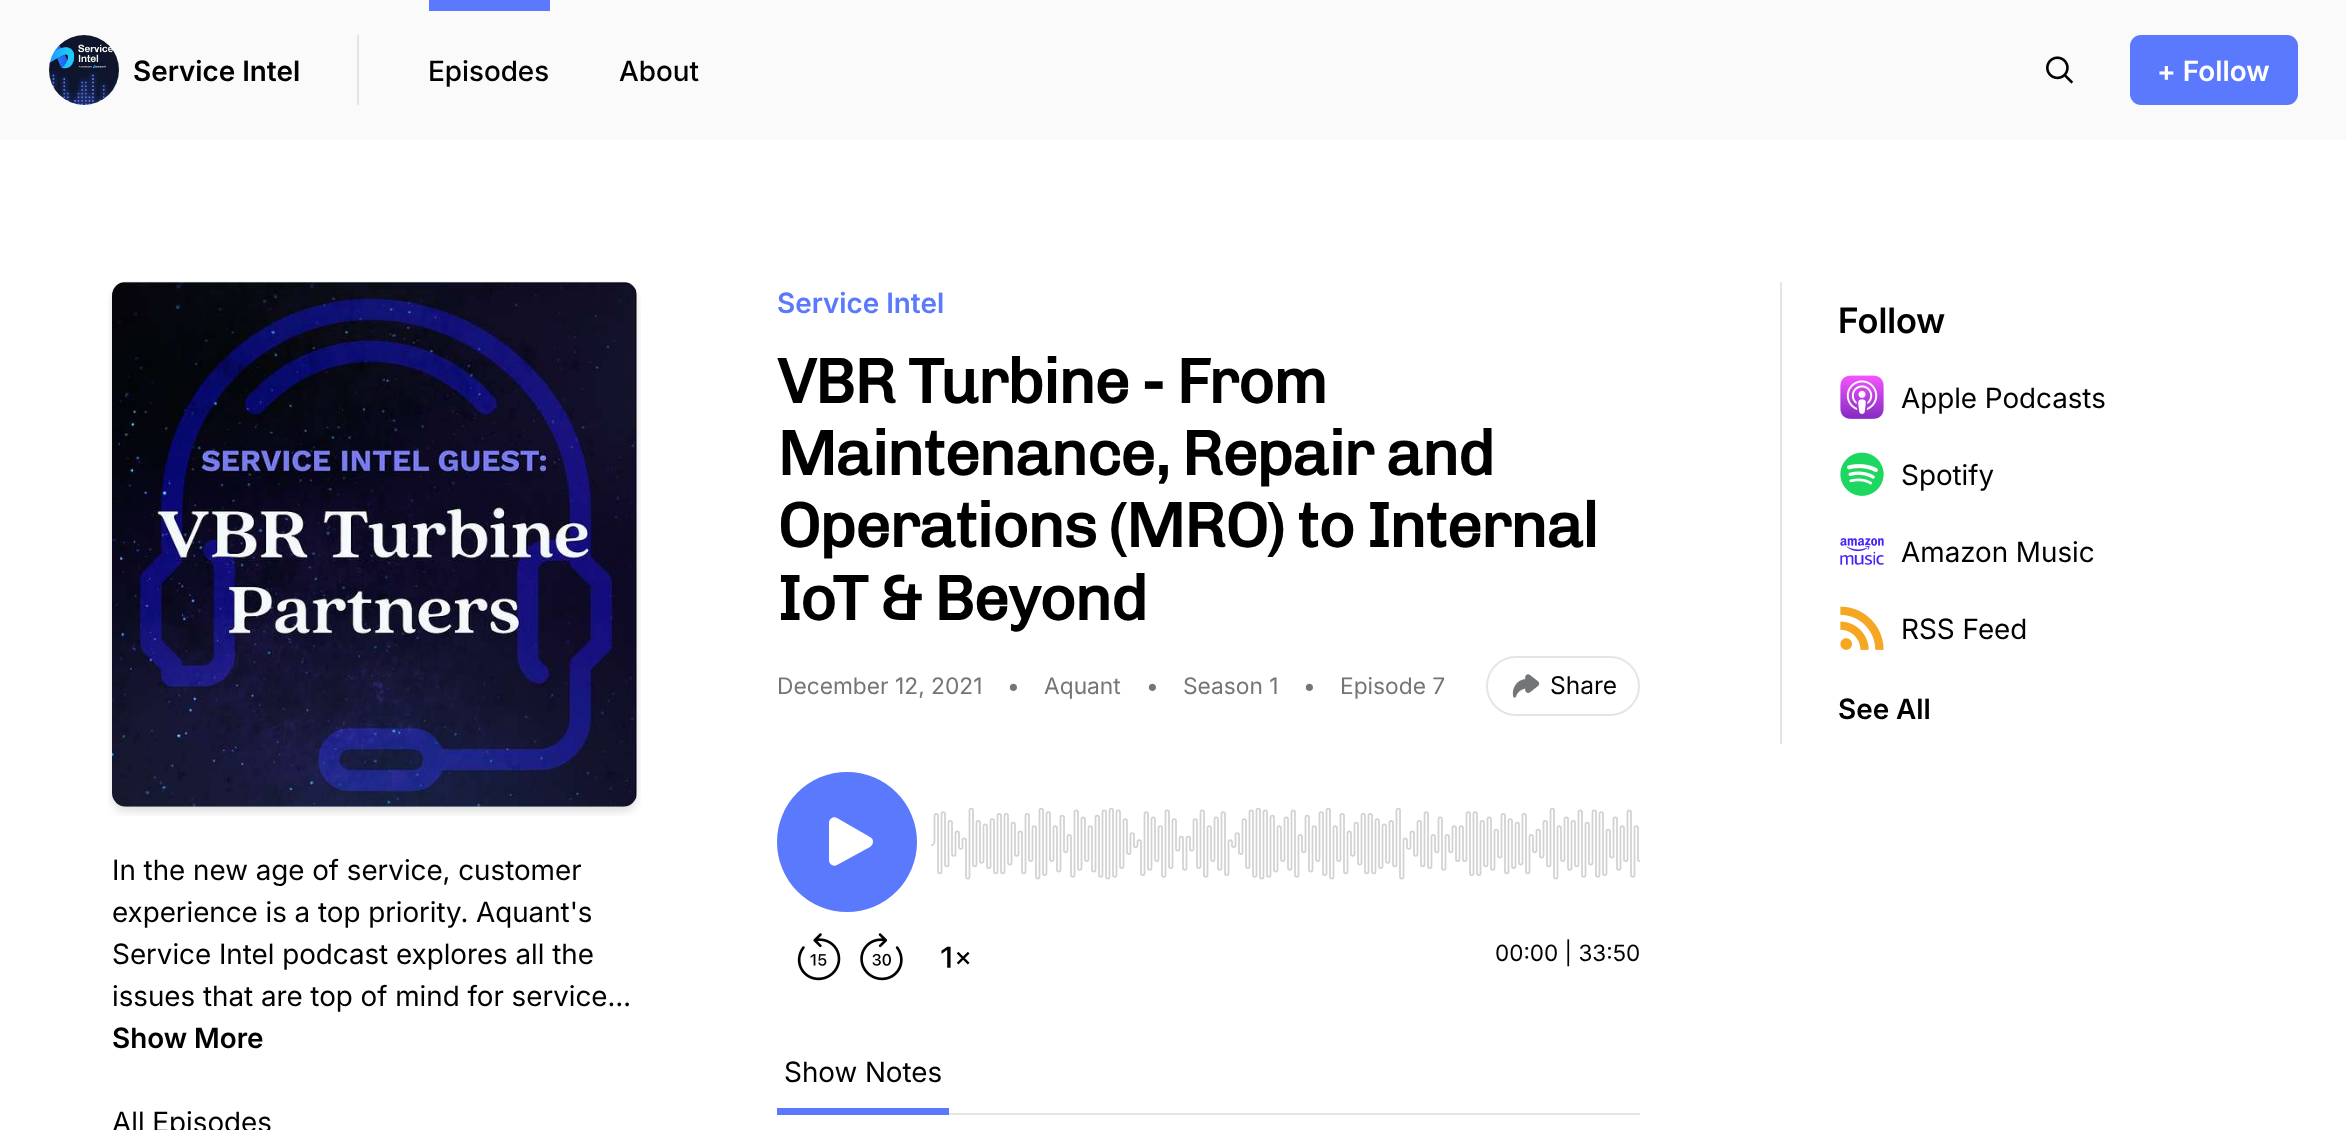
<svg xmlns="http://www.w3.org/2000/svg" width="2346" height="1130">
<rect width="100%" height="100%" fill="#fff"/>
<rect width="2346" height="140" fill="#fafafa"/>
<rect x="357" y="35" width="2" height="70" fill="#e4e5e6"/>
<image x="49" y="35" width="70" height="70" href="media/1.png"/>
<text x="133" y="81" style="font-family:Inter;font-size:28px;font-weight:600;fill:#000">Service Intel</text>
<rect x="429" width="121" height="11" fill="#5a79fc"/>
<text x="428" y="81" style="font-family:Inter;font-size:28px;font-weight:500;fill:#000">Episodes</text>
<text x="619" y="81" style="font-family:Inter;font-size:28px;font-weight:500;fill:#000">About</text>
<image x="2046" y="56" width="28" height="28" href="media/2.png"/>
<rect x="2130" y="35" width="168" height="70" rx="11" fill="#5a79fc"/>
<text x="2157" y="81" style="font-family:Inter;font-size:28px;font-weight:600;fill:#fff">+ Follow</text>
<text x="777" y="313" style="font-family:Inter;font-size:28px;font-weight:600;fill:#5a79fc">Service Intel</text>
<text x="777" y="403" style="font-family:Chivo;font-size:63px;font-weight:bold;letter-spacing:-1.6px;fill:#000">VBR Turbine - From</text>
<text x="777" y="475" style="font-family:Chivo;font-size:63px;font-weight:bold;letter-spacing:-1.6px;fill:#000">Maintenance, Repair and</text>
<text x="777" y="547" style="font-family:Chivo;font-size:63px;font-weight:bold;letter-spacing:-1.6px;fill:#000">Operations (MRO) to Internal</text>
<text x="777" y="620" style="font-family:Chivo;font-size:63px;font-weight:bold;letter-spacing:-1.6px;fill:#000">IoT &amp; Beyond</text>
<text x="777" y="694" style="font-family:'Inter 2';font-size:22.75px;fill:#747576">December 12, 2021</text>
<text x="1007" y="694" style="font-family:'Inter 2';font-size:22.75px;fill:#747576">•</text>
<text x="1044" y="694" style="font-family:'Inter 2';font-size:22.75px;fill:#747576">Aquant</text>
<text x="1146" y="694" style="font-family:'Inter 2';font-size:22.75px;fill:#747576">•</text>
<text x="1183" y="694" style="font-family:'Inter 2';font-size:22.75px;fill:#747576">Season 1</text>
<text x="1303" y="694" style="font-family:'Inter 2';font-size:22.75px;fill:#747576">•</text>
<text x="1340" y="694" style="font-family:'Inter 2';font-size:22.75px;fill:#747576">Episode 7</text>
<rect x="1487" y="657" width="152" height="58" rx="29" fill="none" stroke="#e4e5e6" stroke-width="2"/>
<image x="1512" y="674" width="28" height="24" href="media/3.png"/>
<text x="1550" y="694" style="font-family:'Inter 2';font-size:24.5px;fill:#000">Share</text>
<image x="797" y="933" width="44" height="48" href="media/4.png"/>
<image x="860" y="933" width="43" height="48" href="media/5.png"/>
<image x="941" y="946" width="29" height="22" href="media/6.png"/>
<circle cx="847" cy="842" r="70" fill="#5a79fc"/>
<path d="M829 823c0-4 4-7 8-5l33 19c4 2 4 7 0 10l-33 18c-4 2-8-1-8-5z" fill="#fff" fill-rule="evenodd"/>
<image x="931" y="807" width="709" height="73" href="media/7.png"/>
<text x="1495" y="961" style="font-family:'Inter 2';font-size:22.5px;fill:#000">00:00 | 33:50</text>
<rect x="949" y="1113" width="691" height="2" fill="#e4e5e6"/>
<rect x="777" y="1108" width="172" height="7" fill="#5a79fc"/>
<text x="784" y="1082" style="font-family:Inter;font-size:28px;fill:#000">Show Notes</text>
<rect x="1780" y="282" width="2" height="462" fill="#e4e5e6"/>
<text x="1838" y="333" style="font-family:'Inter 2';font-size:35px;font-weight:600;fill:#000">Follow</text>
<image x="1840" y="375" width="44" height="44" href="media/8.png"/>
<text x="1901" y="408" style="font-family:Inter;font-size:28px;fill:#000">Apple Podcasts</text>
<image x="1840" y="452" width="44" height="44" href="media/9.png"/>
<text x="1901" y="485" style="font-family:Inter;font-size:28px;fill:#000">Spotify</text>
<image x="1840" y="538" width="44" height="27" href="media/10.png"/>
<text x="1901" y="562" style="font-family:Inter;font-size:28px;fill:#000">Amazon Music</text>
<image x="1840" y="606" width="44" height="44" href="media/11.png"/>
<text x="1901" y="639" style="font-family:Inter;font-size:28px;fill:#000">RSS Feed</text>
<text x="1838" y="719" style="font-family:Inter;font-size:28px;font-weight:600;fill:#000">See All</text>
<image x="108" y="281" width="533" height="535" href="media/12.png"/>
<text x="112" y="880" style="font-family:Inter;font-size:28px;fill:#000">In the new age of service, customer</text>
<text x="112" y="922" style="font-family:Inter;font-size:28px;fill:#000">experience is a top priority. Aquant's</text>
<text x="112" y="964" style="font-family:Inter;font-size:28px;fill:#000">Service Intel podcast explores all the</text>
<text x="112" y="1006" style="font-family:Inter;font-size:28px;fill:#000">issues that are top of mind for service…</text>
<text x="112" y="1048" style="font-family:Inter;font-size:28px;font-weight:600;fill:#000">Show More</text>
<text x="112" y="1132" style="font-family:Inter;font-size:28px;fill:#000">All Episodes</text>
</svg>
